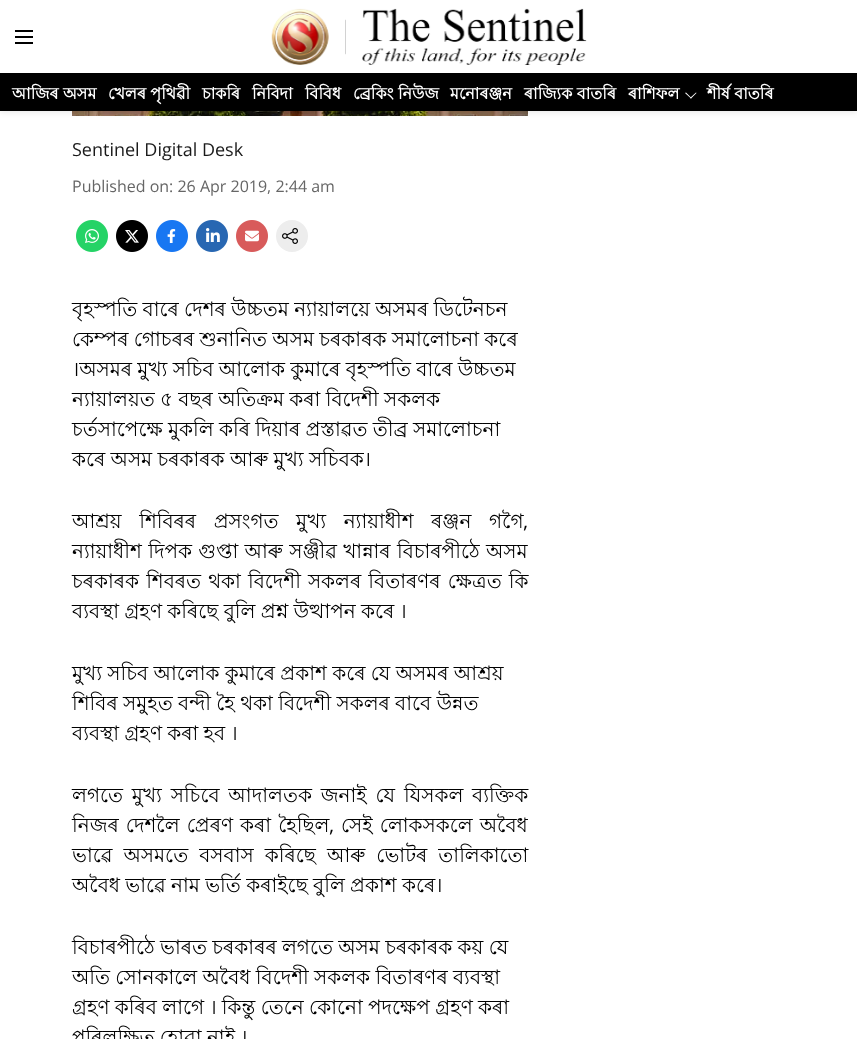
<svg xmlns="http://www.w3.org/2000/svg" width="857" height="1039">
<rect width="100%" height="100%" fill="#fff"/>
<image x="72" y="111" width="456" height="5" href="media/3.png"/>
<rect y="1" width="857" height="111" fill="#0000001a" filter="blur(3px)"/>
<rect width="857" height="73" fill="#fff"/>
<image x="15" y="30" width="18" height="14" href="media/1.png"/>
<image x="271" y="8" width="316" height="57" href="media/2.png"/>
<rect y="73" width="857" height="38" fill="#000"/>
<text x="12" y="99" style="font-family:Lohit Bengali;font-size:16px;font-weight:bold;fill:#fff">আজিৰ অসম</text>
<text x="108" y="99" style="font-family:Lohit Bengali;font-size:16px;font-weight:bold;fill:#fff">খেলৰ পৃথিৱী</text>
<text x="202" y="99" style="font-family:Lohit Bengali;font-size:16px;font-weight:bold;fill:#fff">চাকৰি</text>
<text x="252" y="99" style="font-family:Lohit Bengali;font-size:16px;font-weight:bold;fill:#fff">নিবিদা</text>
<text x="305" y="99" style="font-family:Lohit Bengali;font-size:16px;font-weight:bold;fill:#fff">বিবিধ</text>
<text x="353" y="99" style="font-family:Lohit Bengali;font-size:16px;font-weight:bold;fill:#fff">ব্ৰেকিং নিউজ</text>
<text x="450" y="99" style="font-family:Lohit Bengali;font-size:16px;font-weight:bold;fill:#fff">মনোৰঞ্জন</text>
<text x="524" y="99" style="font-family:Lohit Bengali;font-size:16px;font-weight:bold;fill:#fff">ৰাজ্যিক বাতৰি</text>
<text x="628" y="99" style="font-family:Lohit Bengali;font-size:16px;font-weight:bold;fill:#fff">ৰাশিফল</text>
<path d="M696 92.5l.5 .5l-5.5 5.5l-1-.5z" fill="#fff"/>
<path d="M686 92.5l5.5 5.5l-.5 .5l-6-5.5z" fill="#fff"/>
<text x="707" y="99" style="font-family:Lohit Bengali;font-size:16px;font-weight:bold;fill:#fff">শীৰ্ষ বাতৰি</text>
<text x="72" y="156" style="font-family:Open Sans;font-size:18px;fill:#1a1a1a">Sentinel Digital Desk</text>
<text x="72" y="192" style="font-family:Open Sans;font-size:16px;fill:#666">Published on: 26 Apr 2019, 2:44 am</text>
<image x="76" y="220" width="32" height="32" href="media/4.png"/>
<image x="116" y="220" width="32" height="32" href="media/5.png"/>
<image x="156" y="220" width="32" height="32" href="media/6.png"/>
<image x="196" y="220" width="32" height="32" href="media/7.png"/>
<image x="236" y="220" width="32" height="32" href="media/8.png"/>
<circle cx="292" cy="236" r="16" fill="#ededed"/>
<image x="282" y="228" width="16" height="16" href="media/9.png"/>
<text x="72" y="316" word-spacing="-0.25" style="font-family:Lohit Bengali;font-size:20px;fill:#000">বৃহস্পতি বাৰে দেশৰ উচ্চতম ন্যায়ালয়ে অসমৰ ডিটেনচন</text>
<text x="72" y="346" word-spacing="-0.25" style="font-family:Lohit Bengali;font-size:20px;fill:#000">কেম্পৰ গোচৰৰ শুনানিত অসম চৰকাৰক সমালোচনা কৰে</text>
<text x="72" y="376" word-spacing="-0.25" style="font-family:Lohit Bengali;font-size:20px;fill:#000">।অসমৰ মুখ্য সচিব আলোক কুমাৰে বৃহস্পতি বাৰে উচ্চতম</text>
<text x="72" y="406" word-spacing="-0.25" style="font-family:Lohit Bengali;font-size:20px;fill:#000">ন্যায়ালয়ত ৫ বছৰ অতিক্ৰম কৰা বিদেশী সকলক</text>
<text x="72" y="436" word-spacing="-0.25" style="font-family:Lohit Bengali;font-size:20px;fill:#000">চৰ্তসাপেক্ষে মুকলি কৰি দিয়াৰ প্ৰস্তাৱত তীব্ৰ সমালোচনা</text>
<text x="72" y="466" word-spacing="-0.25" style="font-family:Lohit Bengali;font-size:20px;fill:#000">কৰে অসম চৰকাৰক আৰু মুখ্য সচিবক।</text>
<text x="72" y="528" word-spacing="12" style="font-family:Lohit Bengali;font-size:20px;fill:#000">আশ্ৰয় শিবিৰৰ প্ৰসংগত মুখ্য ন্যায়াধীশ ৰঞ্জন গগৈ</text>
<text x="523" y="528" style="font-family:Open Sans;font-size:20px;fill:#000">,</text>
<text x="72" y="558" word-spacing="0.75" style="font-family:Lohit Bengali;font-size:20px;fill:#000">ন্যায়াধীশ দিপক গুপ্তা আৰু সঞ্জীৱ খান্নাৰ বিচাৰপীঠে অসম</text>
<text x="72" y="588" word-spacing="1.5" style="font-family:Lohit Bengali;font-size:20px;fill:#000">চৰকাৰক শিবৰত থকা বিদেশী সকলৰ বিতাৰণৰ ক্ষেত্ৰত কি</text>
<text x="72" y="618" word-spacing="-0.25" style="font-family:Lohit Bengali;font-size:20px;fill:#000">ব্যবস্থা গ্ৰহণ কৰিছে বুলি প্ৰশ্ন উত্থাপন কৰে ।</text>
<text x="72" y="680" word-spacing="-0.25" style="font-family:Lohit Bengali;font-size:20px;fill:#000">মুখ্য সচিব আলোক কুমাৰে প্ৰকাশ কৰে যে অসমৰ আশ্ৰয়</text>
<text x="72" y="710" word-spacing="-0.25" style="font-family:Lohit Bengali;font-size:20px;fill:#000">শিবিৰ সমুহত বন্দী হৈ থকা বিদেশী সকলৰ বাবে উন্নত</text>
<text x="72" y="740" word-spacing="-0.25" style="font-family:Lohit Bengali;font-size:20px;fill:#000">ব্যবস্থা গ্ৰহণ কৰা হব ।</text>
<text x="72" y="802" word-spacing="3.25" style="font-family:Lohit Bengali;font-size:20px;fill:#000">লগতে মুখ্য সচিবে আদালতক জনাই যে যিসকল ব্যক্তিক</text>
<text x="72" y="832" word-spacing="1.5" style="font-family:Lohit Bengali;font-size:20px;fill:#000">নিজৰ দেশলৈ প্ৰেৰণ কৰা হৈছিল</text>
<text x="329" y="832" style="font-family:Open Sans;font-size:20px;fill:#000">,</text>
<text x="341" y="832" word-spacing="1.5" style="font-family:Lohit Bengali;font-size:20px;fill:#000">সেই লোকসকলে অবৈধ</text>
<text x="72" y="862" word-spacing="5.5" style="font-family:Lohit Bengali;font-size:20px;fill:#000">ভাৱে অসমতে বসবাস কৰিছে আৰু ভোটৰ তালিকাতো</text>
<text x="72" y="892" word-spacing="-0.25" style="font-family:Lohit Bengali;font-size:20px;fill:#000">অবৈধ ভাৱে নাম ভৰ্তি কৰাইছে বুলি প্ৰকাশ কৰে।</text>
<text x="72" y="954" word-spacing="-0.25" style="font-family:Lohit Bengali;font-size:20px;fill:#000">বিচাৰপীঠে ভাৰত চৰকাৰৰ লগতে অসম চৰকাৰক কয় যে</text>
<text x="72" y="984" word-spacing="-0.25" style="font-family:Lohit Bengali;font-size:20px;fill:#000">অতি সোনকালে অবৈধ বিদেশী সকলক বিতাৰণৰ ব্যবস্থা</text>
<text x="72" y="1014" word-spacing="-0.25" style="font-family:Lohit Bengali;font-size:20px;fill:#000">গ্ৰহণ কৰিব লাগে । কিন্তু তেনে কোনো পদক্ষেপ গ্ৰহণ কৰা</text>
<text x="72" y="1044" word-spacing="-0.25" style="font-family:Lohit Bengali;font-size:20px;fill:#000">পৰিলক্ষিত হোৱা নাই ।</text>
</svg>
